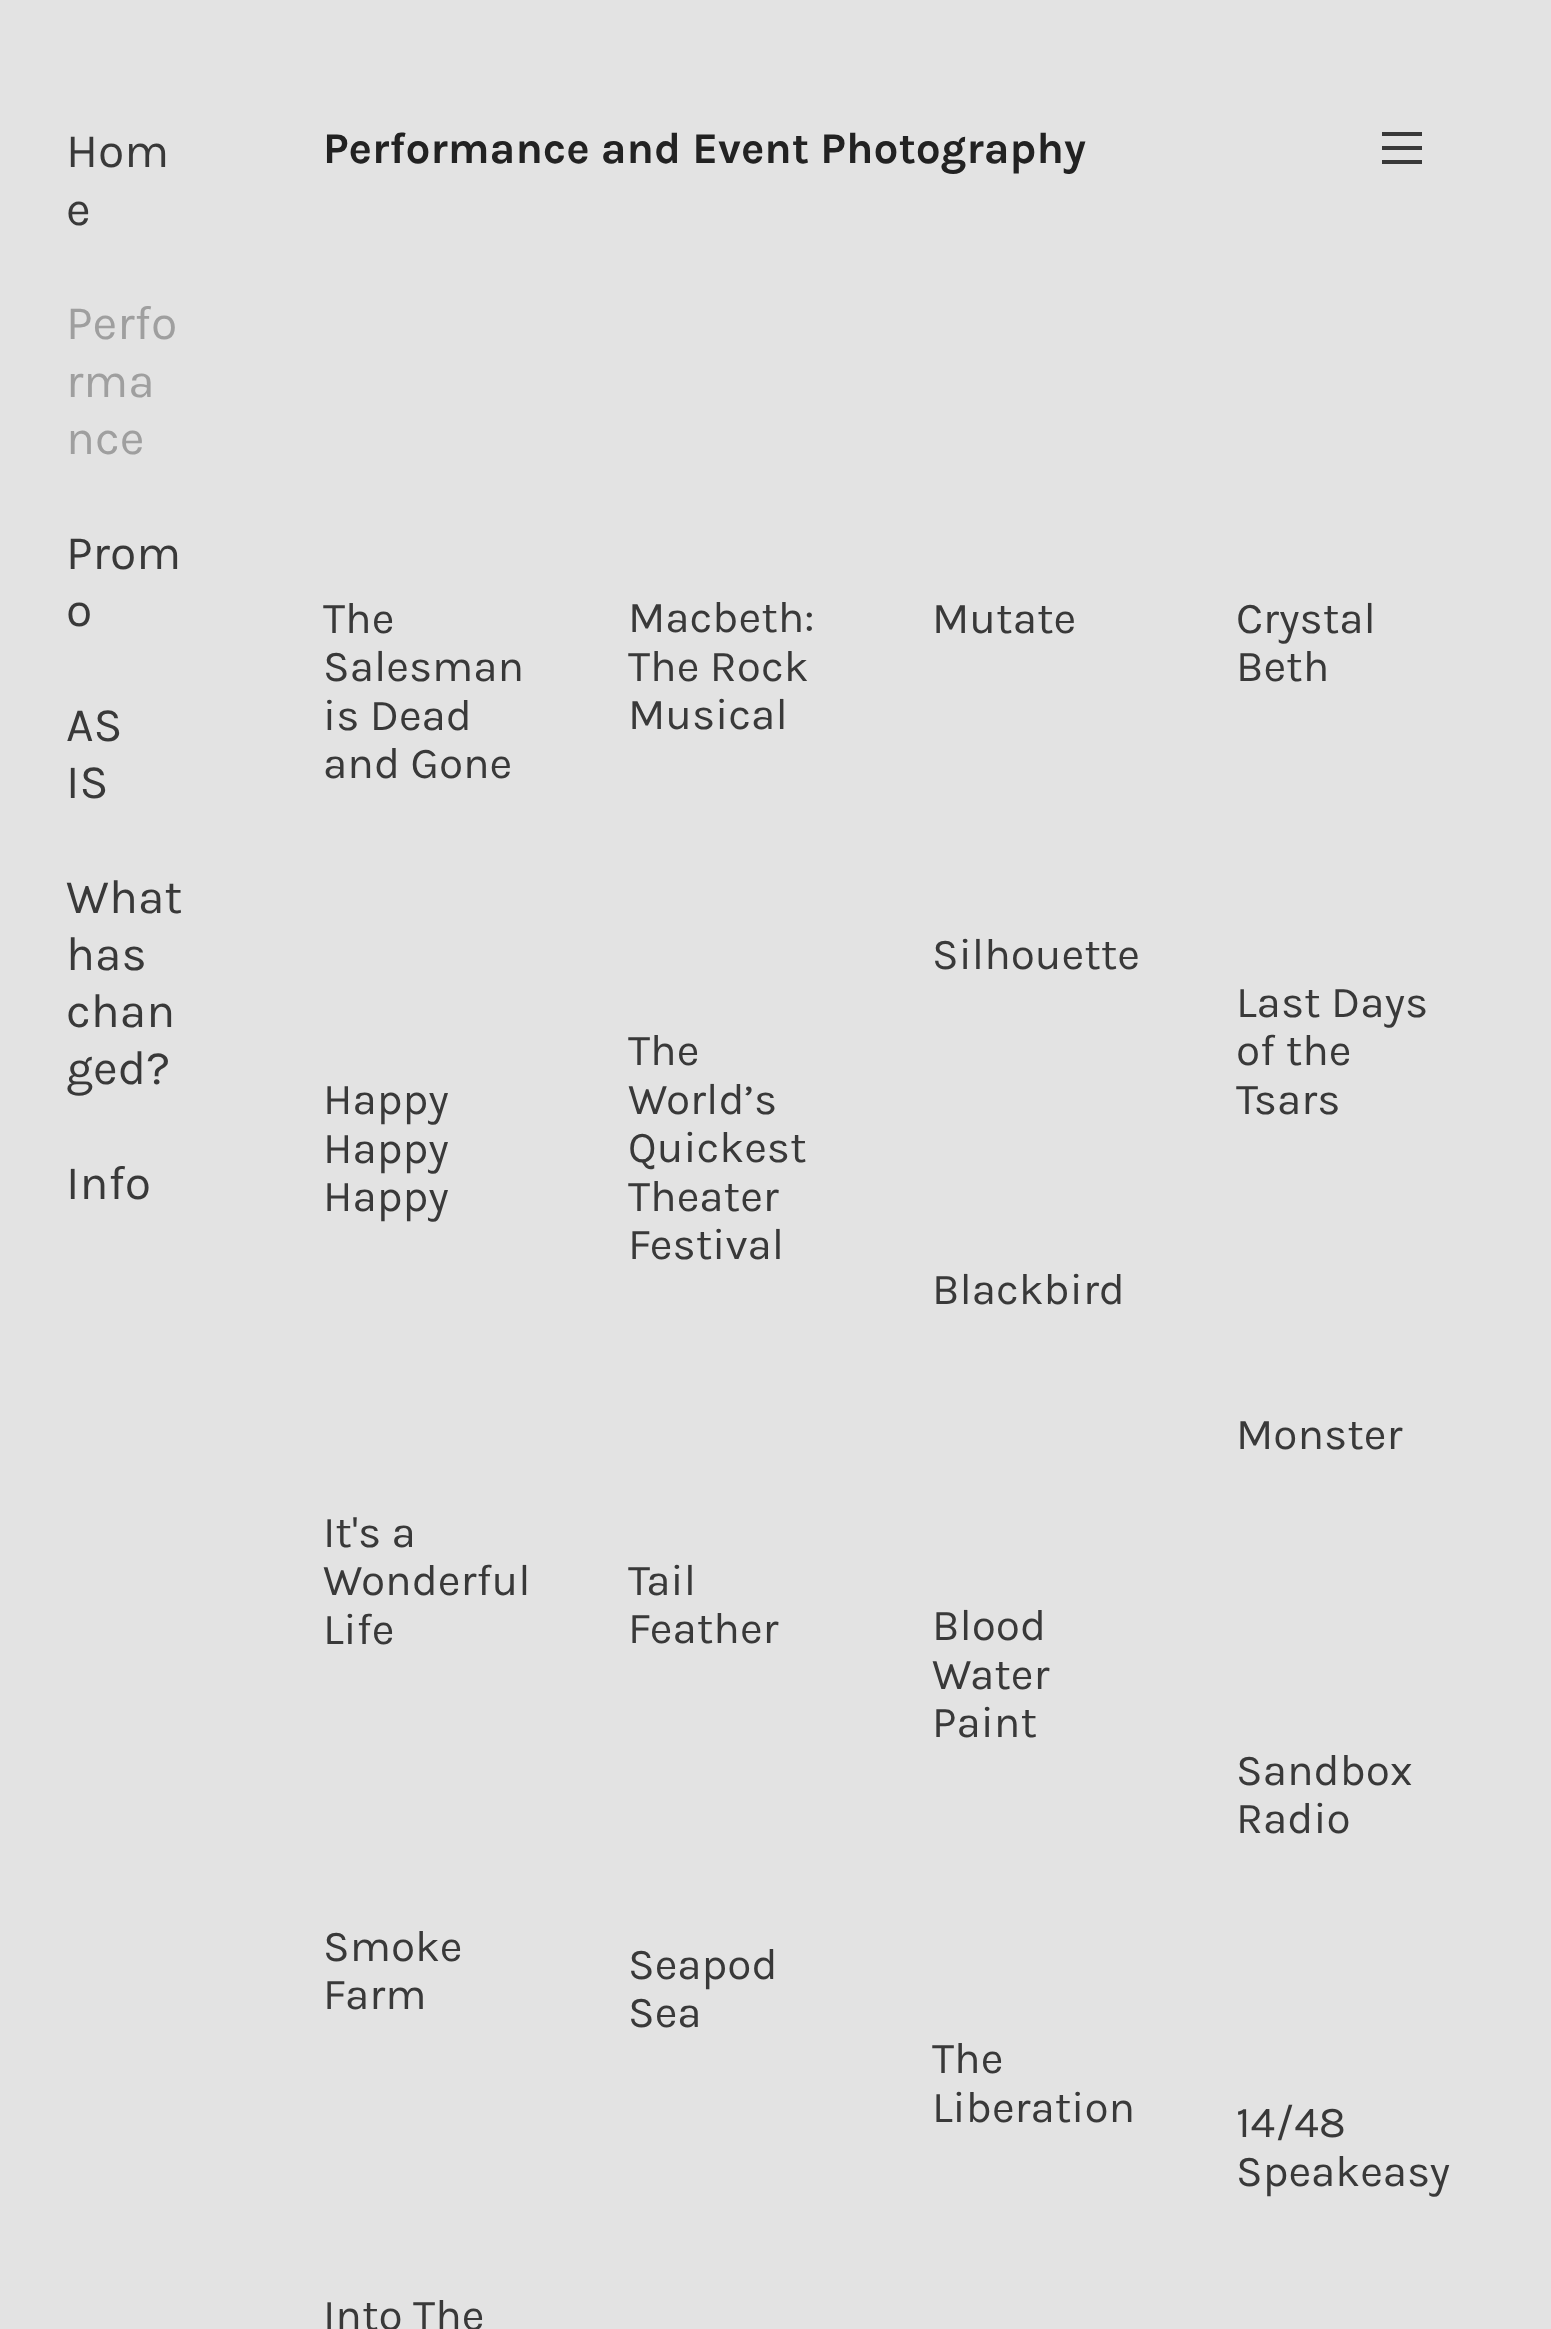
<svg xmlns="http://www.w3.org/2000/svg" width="1551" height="2329">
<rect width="100%" height="100%" fill="#e3e3e3"/>
<text x="66" y="167" style="font-family:Karla;font-size:48px;fill:#393939">Hom</text>
<text x="66" y="225" style="font-family:Karla;font-size:48px;fill:#393939">e</text>
<text x="66" y="339" style="font-family:Karla;font-size:48px;fill:#9f9f9f">Perfo</text>
<text x="66" y="397" style="font-family:Karla;font-size:48px;fill:#9f9f9f">rma</text>
<text x="66" y="454" style="font-family:Karla;font-size:48px;fill:#9f9f9f">nce</text>
<text x="66" y="569" style="font-family:Karla;font-size:48px;fill:#393939">Prom</text>
<text x="66" y="626" style="font-family:Karla;font-size:48px;fill:#393939">o</text>
<text x="66" y="741" style="font-family:Karla;font-size:48px;fill:#393939">AS</text>
<text x="66" y="798" style="font-family:Karla;font-size:48px;fill:#393939">IS</text>
<text x="66" y="913" style="font-family:Karla;font-size:48px;fill:#393939">What</text>
<text x="66" y="970" style="font-family:Karla;font-size:48px;fill:#393939">has</text>
<text x="66" y="1027" style="font-family:Karla;font-size:48px;fill:#393939">chan</text>
<text x="66" y="1084" style="font-family:Karla;font-size:48px;fill:#393939">ged?</text>
<text x="66" y="1199" style="font-family:Karla;font-size:48px;fill:#393939">Info</text>
<text x="323" y="163" style="font-family:Karla;font-size:44.1px;font-weight:bold;fill:#222">Performance and Event Photography</text>
<text x="323" y="633" style="font-family:Karla;font-size:44.1px;fill:#393939">The</text>
<text x="323" y="681" style="font-family:Karla;font-size:44.1px;fill:#393939">Salesman</text>
<text x="323" y="730" style="font-family:Karla;font-size:44.1px;fill:#393939">is Dead</text>
<text x="323" y="778" style="font-family:Karla;font-size:44.1px;fill:#393939">and Gone</text>
<text x="323" y="1114" style="font-family:Karla;font-size:44.1px;fill:#393939">Happy</text>
<text x="323" y="1163" style="font-family:Karla;font-size:44.1px;fill:#393939">Happy</text>
<text x="323" y="1211" style="font-family:Karla;font-size:44.1px;fill:#393939">Happy</text>
<text x="323" y="1547" style="font-family:Karla;font-size:44.1px;fill:#393939">It's a</text>
<text x="323" y="1595" style="font-family:Karla;font-size:44.1px;fill:#393939">Wonderful</text>
<text x="323" y="1644" style="font-family:Karla;font-size:44.1px;fill:#393939">Life</text>
<text x="323" y="1961" style="font-family:Karla;font-size:44.1px;fill:#393939">Smoke</text>
<text x="323" y="2009" style="font-family:Karla;font-size:44.1px;fill:#393939">Farm</text>
<text x="323" y="2330" style="font-family:Karla;font-size:44.1px;fill:#393939">Into The</text>
<text x="628" y="632" style="font-family:Karla;font-size:44.1px;fill:#393939">Macbeth:</text>
<text x="628" y="681" style="font-family:Karla;font-size:44.1px;fill:#393939">The Rock</text>
<text x="628" y="729" style="font-family:Karla;font-size:44.1px;fill:#393939">Musical</text>
<text x="628" y="1065" style="font-family:Karla;font-size:44.1px;fill:#393939">The</text>
<text x="628" y="1114" style="font-family:Karla;font-size:44.1px;fill:#393939">World’s</text>
<text x="628" y="1162" style="font-family:Karla;font-size:44.1px;fill:#393939">Quickest</text>
<text x="628" y="1211" style="font-family:Karla;font-size:44.1px;fill:#393939">Theater</text>
<text x="628" y="1259" style="font-family:Karla;font-size:44.1px;fill:#393939">Festival</text>
<text x="628" y="1595" style="font-family:Karla;font-size:44.1px;fill:#393939">Tail</text>
<text x="628" y="1643" style="font-family:Karla;font-size:44.1px;fill:#393939">Feather</text>
<text x="628" y="1979" style="font-family:Karla;font-size:44.1px;fill:#393939">Seapod</text>
<text x="628" y="2027" style="font-family:Karla;font-size:44.1px;fill:#393939">Sea</text>
<text x="932" y="633" style="font-family:Karla;font-size:44.1px;fill:#393939">Mutate</text>
<text x="932" y="969" style="font-family:Karla;font-size:44.1px;fill:#393939">Silhouette</text>
<text x="932" y="1304" style="font-family:Karla;font-size:44.1px;fill:#393939">Blackbird</text>
<text x="932" y="1640" style="font-family:Karla;font-size:44.1px;fill:#393939">Blood</text>
<text x="932" y="1689" style="font-family:Karla;font-size:44.1px;fill:#393939">Water</text>
<text x="932" y="1737" style="font-family:Karla;font-size:44.1px;fill:#393939">Paint</text>
<text x="932" y="2073" style="font-family:Karla;font-size:44.1px;fill:#393939">The</text>
<text x="932" y="2122" style="font-family:Karla;font-size:44.1px;fill:#393939">Liberation</text>
<text x="1236" y="633" style="font-family:Karla;font-size:44.1px;fill:#393939">Crystal</text>
<text x="1236" y="681" style="font-family:Karla;font-size:44.1px;fill:#393939">Beth</text>
<text x="1236" y="1017" style="font-family:Karla;font-size:44.1px;fill:#393939">Last Days</text>
<text x="1236" y="1065" style="font-family:Karla;font-size:44.1px;fill:#393939">of the</text>
<text x="1236" y="1114" style="font-family:Karla;font-size:44.1px;fill:#393939">Tsars</text>
<text x="1236" y="1449" style="font-family:Karla;font-size:44.1px;fill:#393939">Monster</text>
<text x="1236" y="1785" style="font-family:Karla;font-size:44.1px;fill:#393939">Sandbox</text>
<text x="1236" y="1833" style="font-family:Karla;font-size:44.1px;fill:#393939">Radio</text>
<text x="1236" y="2137" style="font-family:Karla;font-size:44.1px;fill:#393939">14/48</text>
<text x="1236" y="2186" style="font-family:Karla;font-size:44.1px;fill:#393939">Speakeasy</text>
<path d="M1422 132v4h-40v-4zm0 14v4h-40v-4zm0 14v4h-40v-4z" fill="#393939"/>
</svg>
